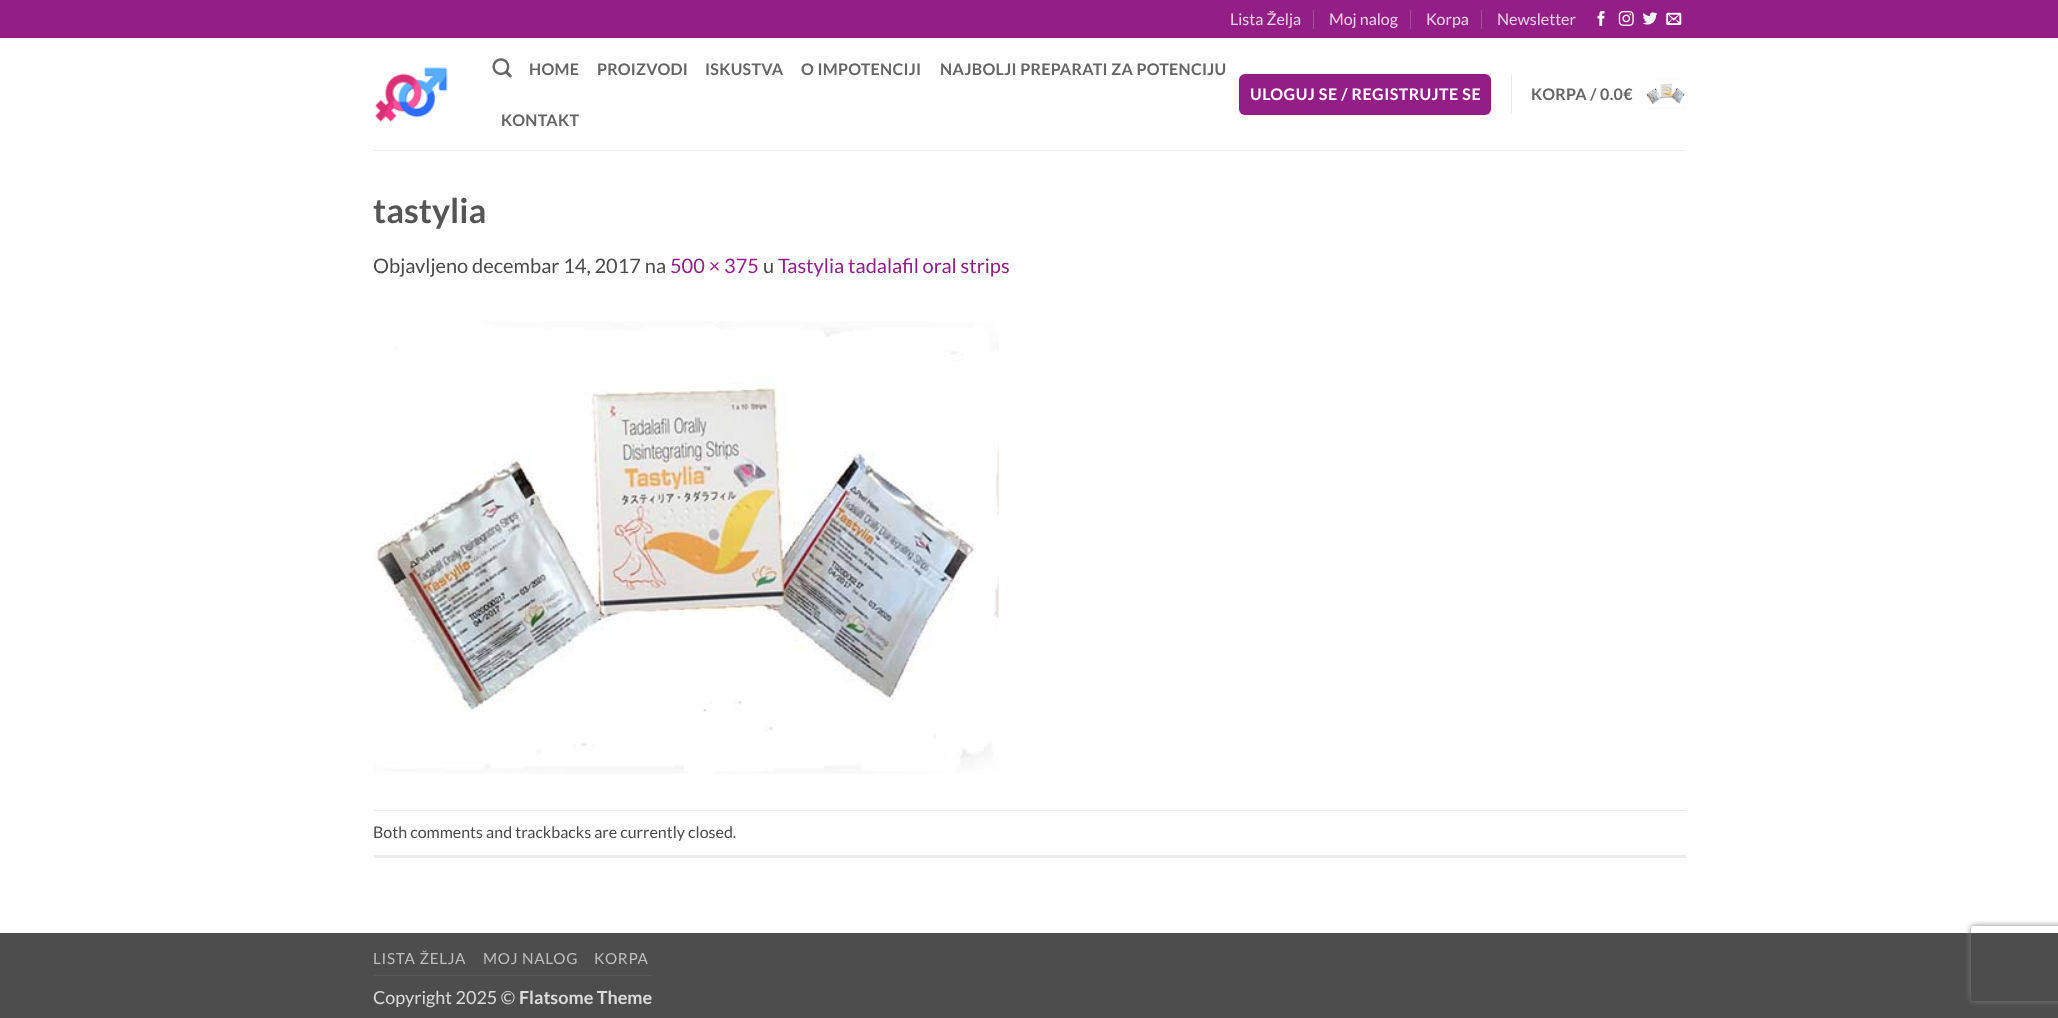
<svg xmlns="http://www.w3.org/2000/svg" width="2058" height="1018">
<defs>
<clipPath id="clip1"><path d="M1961 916h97v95h-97zm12.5 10h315c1.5 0 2.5 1 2.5 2.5v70c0 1.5-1 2.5-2.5 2.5h-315c-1.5 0-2.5-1-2.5-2.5v-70c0-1.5 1-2.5 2.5-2.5z" clip-rule="evenodd"/></clipPath>
</defs>
<rect width="100%" height="100%" fill="#fff"/>
<rect width="2058" height="38" fill="#931f86"/>
<text x="1230" y="25" style="font-family:Lato;font-size:16px;fill:#e9d2e7">Lista Želja</text>
<rect x="1313" y="10" width="1" height="19" fill="#a94c9e"/>
<text x="1329" y="25" style="font-family:Lato;font-size:16px;fill:#e9d2e7">Moj nalog</text>
<rect x="1410" y="10" width="1" height="19" fill="#a94c9e"/>
<text x="1426" y="25" style="font-family:Lato;font-size:16px;fill:#e9d2e7">Korpa</text>
<rect x="1481" y="10" width="1" height="19" fill="#a94c9e"/>
<text x="1497" y="25" style="font-family:Lato;font-size:16px;fill:#e9d2e7">Newsletter</text>
<image x="1597" y="10" width="8" height="16" href="media/1.png"/>
<image x="1618" y="10" width="16" height="16" href="media/2.png"/>
<image x="1642" y="12" width="16" height="13" href="media/3.png"/>
<image x="1666" y="12" width="16" height="13" href="media/4.png"/>
<image x="374" y="67" width="74" height="55" href="media/5.png"/>
<image x="492" y="58" width="20" height="20" href="media/6.png"/>
<text x="529" y="75" style="font-family:Lato;font-size:16px;font-weight:bold;letter-spacing:0.3px;fill:#656565">HOME</text>
<text x="597" y="75" style="font-family:Lato;font-size:16px;font-weight:bold;letter-spacing:0.3px;fill:#656565">PROIZVODI</text>
<text x="705" y="75" style="font-family:Lato;font-size:16px;font-weight:bold;letter-spacing:0.3px;fill:#656565">ISKUSTVA</text>
<text x="801" y="75" style="font-family:Lato;font-size:16px;font-weight:bold;letter-spacing:0.3px;fill:#656565">O IMPOTENCIJI</text>
<text x="940" y="75" style="font-family:Lato;font-size:16px;font-weight:bold;letter-spacing:0.3px;fill:#656565">NAJBOLJI PREPARATI ZA POTENCIJU</text>
<text x="501" y="126" style="font-family:Lato;font-size:16px;font-weight:bold;letter-spacing:0.3px;fill:#656565">KONTAKT</text>
<rect x="1239" y="74" width="252" height="41" rx="6" fill="#931f86"/>
<rect x="1239.5" y="74.5" width="251" height="40" fill="none" stroke="#0000000d"/>
<text x="1250" y="100" style="font-family:Lato;font-size:16px;font-weight:bold;letter-spacing:0.5px;fill:#fff">ULOGUJ SE / REGISTRUJTE SE</text>
<rect x="1511" y="75" width="1" height="38" fill="#e6e6e6"/>
<text x="1531" y="100" style="font-family:Lato;font-size:16px;font-weight:bold;letter-spacing:0.3px;fill:#656565">KORPA / 0.0€</text>
<image x="1646" y="79" width="40" height="30" href="media/7.png"/>
<rect x="374" y="150" width="1312" height="1" fill="#ededed"/>
<text x="373" y="223" style="font-family:Lato;font-size:34px;font-weight:bold;fill:#555">tastylia</text>
<text x="373" y="273" style="font-family:Lato;font-size:20px;fill:#4a4a4a">Objavljeno decembar 14, 2017 na</text>
<text x="670" y="273" style="font-family:Lato;font-size:20px;fill:#931f86">500 × 375</text>
<text x="763" y="273" style="font-family:Lato;font-size:20px;fill:#4a4a4a">u</text>
<text x="778" y="273" style="font-family:Lato;font-size:20px;fill:#931f86">Tastylia tadalafil oral strips</text>
<image x="374" y="321" width="625" height="453" href="media/8.png"/>
<rect x="374" y="810" width="1312" height="1" fill="#ececec"/>
<rect x="374" y="855" width="1312" height="3" fill="#ececec"/>
<text x="373" y="838" style="font-family:Lato;font-size:16px;fill:#4a4a4a">Both comments and trackbacks are currently closed.</text>
<rect y="933" width="2058" height="85" fill="#4d4d4d"/>
<rect x="374" y="975" width="277" height="1" fill="#585858"/>
<text x="373" y="964" style="font-family:Lato;font-size:15.25px;letter-spacing:0.75px;fill:#bfbfbf">LISTA ŽELJA</text>
<text x="483" y="964" style="font-family:Lato;font-size:15.25px;letter-spacing:0.75px;fill:#bfbfbf">MOJ NALOG</text>
<text x="594" y="964" style="font-family:Lato;font-size:15.25px;letter-spacing:0.75px;fill:#bfbfbf">KORPA</text>
<text x="373" y="1004" style="font-family:Lato;font-size:18px;fill:#dbdbdb">Copyright 2025 ©</text>
<text x="519" y="1004" style="font-family:Lato;font-size:18px;font-weight:bold;fill:#dbdbdb">Flatsome Theme</text>
<g clip-path="url(#clip1)">
<rect x="1971" y="926" width="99" height="75" rx="2.5" fill="#808080" filter="blur(3px)"/>
</g>
</svg>
